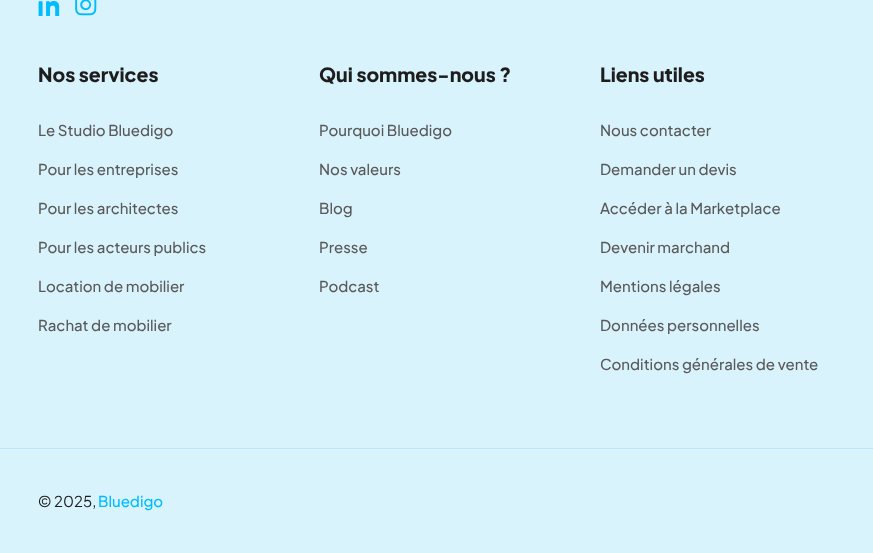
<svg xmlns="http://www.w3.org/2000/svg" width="873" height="553">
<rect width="100%" height="100%" fill="#d9f3fc"/>
<image x="38" y="1" width="22" height="15" href="media/1.png"/>
<image x="75" y="0" width="22" height="16" href="media/2.png"/>
<text x="38" y="82" style="font-family:Plus Jakarta Sans;font-size:19.5px;font-weight:800;fill:#1d1d1d">Nos services</text>
<text x="38" y="136" style="font-family:Plus Jakarta Sans;font-size:15px;font-weight:500;fill:#595959">Le Studio Bluedigo</text>
<text x="38" y="175" style="font-family:Plus Jakarta Sans;font-size:15px;font-weight:500;fill:#595959">Pour les entreprises</text>
<text x="38" y="214" style="font-family:Plus Jakarta Sans;font-size:15px;font-weight:500;fill:#595959">Pour les architectes</text>
<text x="38" y="253" style="font-family:Plus Jakarta Sans;font-size:15px;font-weight:500;fill:#595959">Pour les acteurs publics</text>
<text x="38" y="292" style="font-family:Plus Jakarta Sans;font-size:15px;font-weight:500;fill:#595959">Location de mobilier</text>
<text x="38" y="331" style="font-family:Plus Jakarta Sans;font-size:15px;font-weight:500;fill:#595959">Rachat de mobilier</text>
<text x="319" y="82" style="font-family:Plus Jakarta Sans;font-size:19.5px;font-weight:800;fill:#1d1d1d">Qui sommes-nous ?</text>
<text x="319" y="136" style="font-family:Plus Jakarta Sans;font-size:15px;font-weight:500;fill:#595959">Pourquoi Bluedigo</text>
<text x="319" y="175" style="font-family:Plus Jakarta Sans;font-size:15px;font-weight:500;fill:#595959">Nos valeurs</text>
<text x="319" y="214" style="font-family:Plus Jakarta Sans;font-size:15px;font-weight:500;fill:#595959">Blog</text>
<text x="319" y="253" style="font-family:Plus Jakarta Sans;font-size:15px;font-weight:500;fill:#595959">Presse</text>
<text x="319" y="292" style="font-family:Plus Jakarta Sans;font-size:15px;font-weight:500;fill:#595959">Podcast</text>
<text x="600" y="82" style="font-family:Plus Jakarta Sans;font-size:19.5px;font-weight:800;fill:#1d1d1d">Liens utiles</text>
<text x="600" y="136" style="font-family:Plus Jakarta Sans;font-size:15px;font-weight:500;fill:#595959">Nous contacter</text>
<text x="600" y="175" style="font-family:Plus Jakarta Sans;font-size:15px;font-weight:500;fill:#595959">Demander un devis</text>
<text x="600" y="214" style="font-family:Plus Jakarta Sans;font-size:15px;font-weight:500;fill:#595959">Accéder à la Marketplace</text>
<text x="600" y="253" style="font-family:Plus Jakarta Sans;font-size:15px;font-weight:500;fill:#595959">Devenir marchand</text>
<text x="600" y="292" style="font-family:Plus Jakarta Sans;font-size:15px;font-weight:500;fill:#595959">Mentions légales</text>
<text x="600" y="331" style="font-family:Plus Jakarta Sans;font-size:15px;font-weight:500;fill:#595959">Données personnelles</text>
<text x="600" y="370" style="font-family:Plus Jakarta Sans;font-size:15px;font-weight:500;fill:#595959">Conditions générales de vente</text>
<rect y="448" width="873" height="1" fill="#b8e8f9"/>
<text x="38" y="507" style="font-family:Plus Jakarta Sans;font-size:15px;fill:#1d1d1d">© 2025,</text>
<text x="98" y="507" style="font-family:Plus Jakarta Sans;font-size:15px;font-weight:500;fill:#0bf">Bluedigo</text>
</svg>
